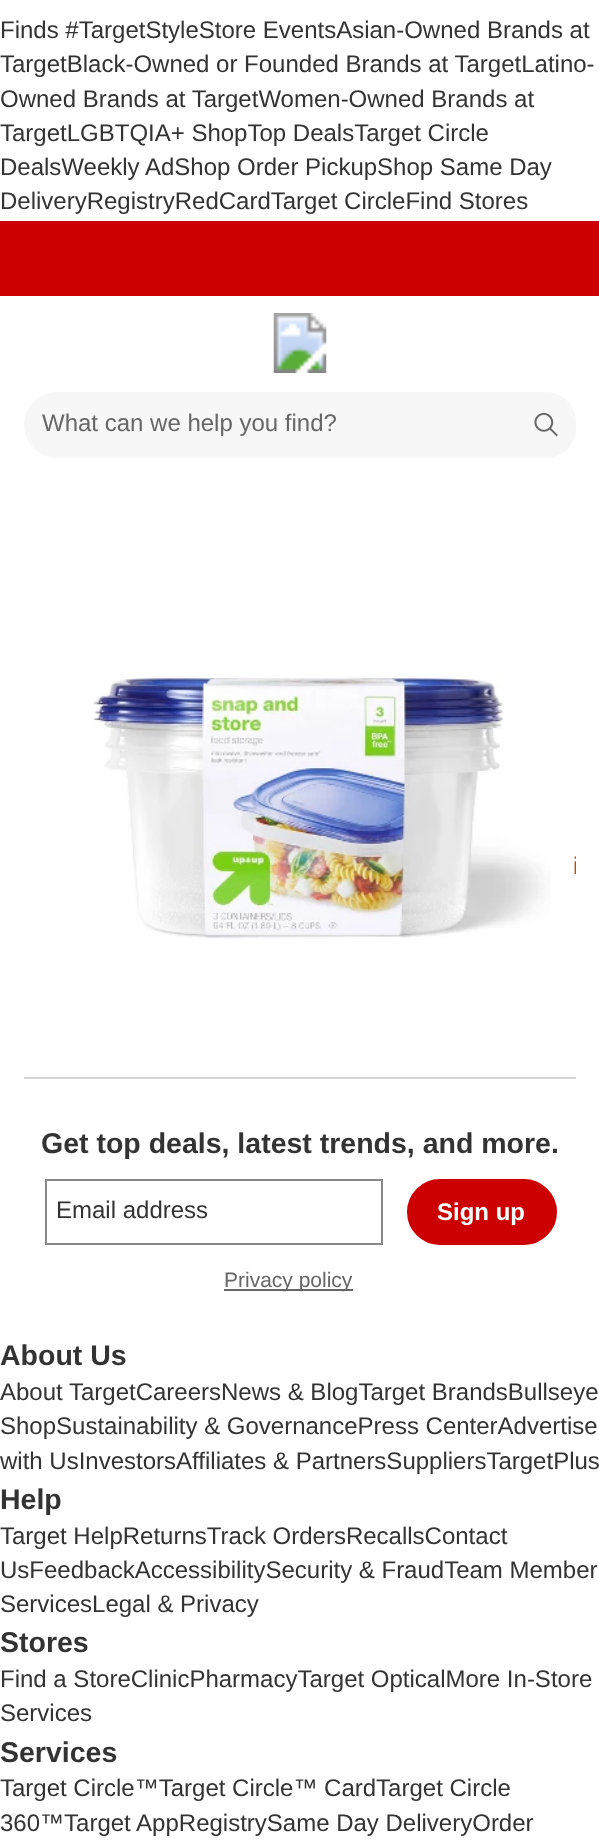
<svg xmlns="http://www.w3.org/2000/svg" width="599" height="1846">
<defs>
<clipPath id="clip1"><rect x="24" y="507" width="552" height="552" rx="24"/></clipPath>
</defs>
<rect width="100%" height="100%" fill="#fff"/>
<text x="0" y="38" style="font-family:Liberation Sans;font-size:24px;fill:#333">Finds #TargetStyleStore EventsAsian-Owned Brands at</text>
<text x="0" y="72" style="font-family:Liberation Sans;font-size:24px;fill:#333">TargetBlack-Owned or Founded Brands at TargetLatino-</text>
<text x="0" y="107" style="font-family:Liberation Sans;font-size:24px;fill:#333">Owned Brands at TargetWomen-Owned Brands at</text>
<text x="0" y="141" style="font-family:Liberation Sans;font-size:24px;fill:#333">TargetLGBTQIA+ ShopTop DealsTarget Circle</text>
<text x="0" y="175" style="font-family:Liberation Sans;font-size:24px;fill:#333">DealsWeekly AdShop Order PickupShop Same Day</text>
<text x="0" y="209" style="font-family:Liberation Sans;font-size:24px;fill:#333">DeliveryRegistryRedCardTarget CircleFind Stores</text>
<rect y="221" width="599" height="75" fill="#c00"/>
<image x="273" y="313" width="54" height="60" href="media/1.png"/>
<rect x="24" y="392" width="552" height="66" rx="33" fill="#f7f7f7"/>
<text x="42" y="431" style="font-family:Liberation Sans;font-size:24px;fill:#666">What can we help you find?</text>
<rect x="516" y="392" width="60" height="66" rx="30" fill="#f7f7f7"/>
<image x="534" y="412" width="24" height="25" href="media/2.png"/>
<image x="93" y="676" width="458" height="263" href="media/3.png"/>
<g clip-path="url(#clip1)">
<text x="573" y="874" style="font-family:Liberation Sans;font-size:24px;fill:#b85300">i</text>
</g>
<rect x="24" y="1077" width="552" height="2" fill="#d6d6d6"/>
<text x="41" y="1153" style="font-family:Liberation Sans;font-size:28.5px;font-weight:bold;fill:#333">Get top deals, latest trends, and more.</text>
<rect x="46" y="1180" width="336" height="64" fill="none" stroke="#888" stroke-width="2"/>
<text x="56" y="1218" style="font-family:Liberation Sans;font-size:24px;fill:#333">Email address</text>
<rect x="408" y="1180" width="148" height="64" rx="32" fill="#c00" stroke="#c00" stroke-width="2"/>
<text x="437" y="1220" style="font-family:Liberation Sans;font-size:24px;font-weight:bold;fill:#fff">Sign up</text>
<rect x="224" y="1289" width="129" height="2" fill="#666"/>
<text x="224" y="1287" style="font-family:Liberation Sans;font-size:21px;fill:#666">Privacy policy</text>
<text x="0" y="1365" style="font-family:Liberation Sans;font-size:28.5px;font-weight:bold;fill:#333">About Us</text>
<text x="0" y="1400" style="font-family:Liberation Sans;font-size:24px;fill:#333">About TargetCareersNews &amp; BlogTarget BrandsBullseye</text>
<text x="0" y="1434" style="font-family:Liberation Sans;font-size:24px;fill:#333">ShopSustainability &amp; GovernancePress CenterAdvertise</text>
<text x="0" y="1469" style="font-family:Liberation Sans;font-size:24px;fill:#333">with UsInvestorsAffiliates &amp; PartnersSuppliersTargetPlus</text>
<text x="0" y="1509" style="font-family:Liberation Sans;font-size:28.5px;font-weight:bold;fill:#333">Help</text>
<text x="0" y="1544" style="font-family:Liberation Sans;font-size:24px;fill:#333">Target HelpReturnsTrack OrdersRecallsContact</text>
<text x="0" y="1578" style="font-family:Liberation Sans;font-size:24px;fill:#333">UsFeedbackAccessibilitySecurity &amp; FraudTeam Member</text>
<text x="0" y="1612" style="font-family:Liberation Sans;font-size:24px;fill:#333">ServicesLegal &amp; Privacy</text>
<text x="0" y="1652" style="font-family:Liberation Sans;font-size:28.5px;font-weight:bold;fill:#333">Stores</text>
<text x="0" y="1687" style="font-family:Liberation Sans;font-size:24px;fill:#333">Find a StoreClinicPharmacyTarget OpticalMore In-Store</text>
<text x="0" y="1721" style="font-family:Liberation Sans;font-size:24px;fill:#333">Services</text>
<text x="0" y="1762" style="font-family:Liberation Sans;font-size:28.5px;font-weight:bold;fill:#333">Services</text>
<text x="0" y="1796" style="font-family:Liberation Sans;font-size:24px;fill:#333">Target Circle™Target Circle™ CardTarget Circle</text>
<text x="0" y="1831" style="font-family:Liberation Sans;font-size:24px;fill:#333">360™Target AppRegistrySame Day DeliveryOrder</text>
</svg>
